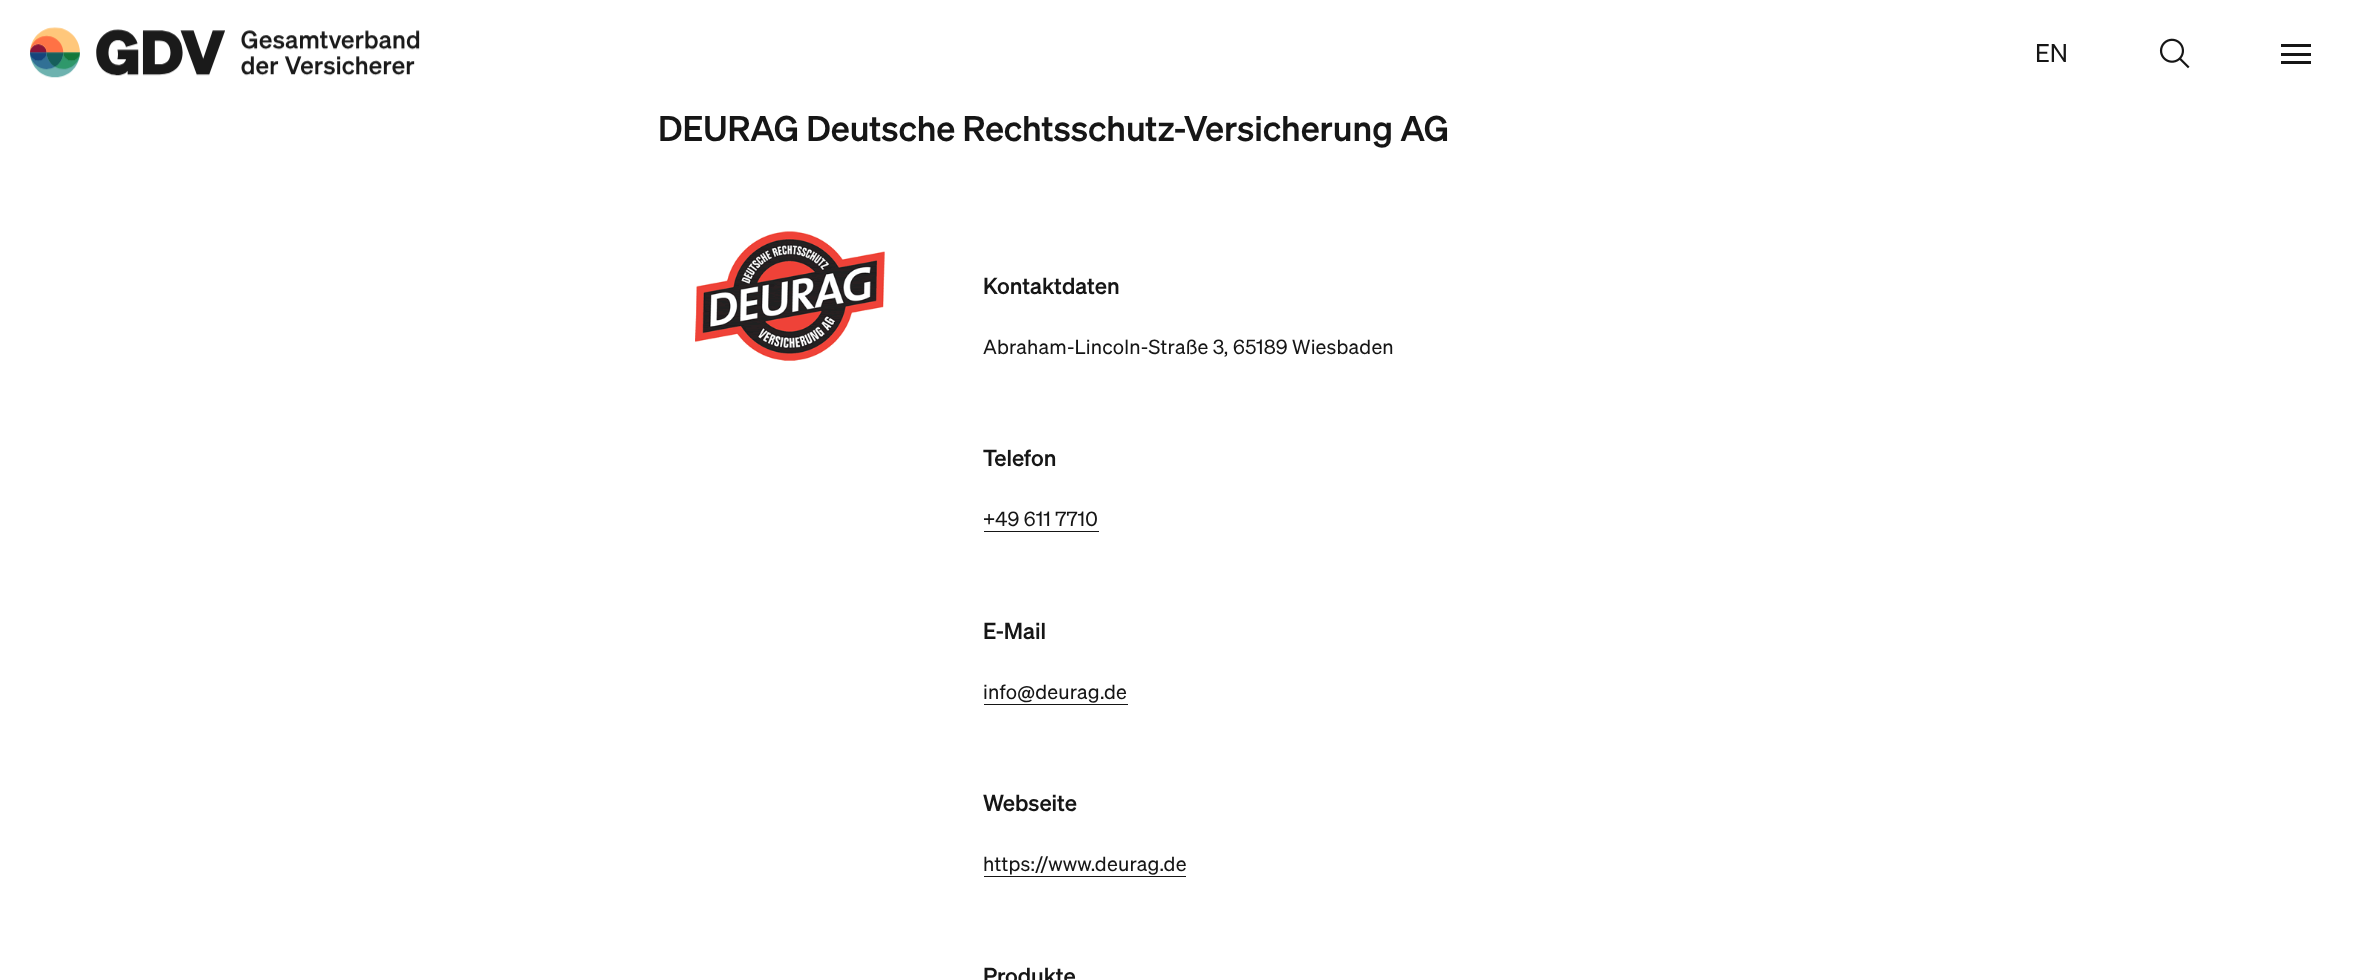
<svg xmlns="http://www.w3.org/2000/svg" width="2356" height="980">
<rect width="100%" height="100%" fill="#fff"/>
<image x="30" y="27" width="390" height="51" href="media/1.png"/>
<text x="2035" y="62" style="font-family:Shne;font-size:25px;fill:#161616">EN</text>
<image x="2159" y="38" width="31" height="31" href="media/2.png"/>
<rect x="2281" y="44" width="30" height="3" fill="#161616"/>
<rect x="2281" y="53" width="30" height="3" fill="#161616"/>
<rect x="2281" y="61" width="30" height="3" fill="#161616"/>
<text x="658" y="141" style="font-family:Shne;font-size:35px;font-weight:500;fill:#161616">DEURAG Deutsche Rechtsschutz-Versicherung AG</text>
<image x="695" y="231" width="190" height="130" href="media/3.png"/>
<text x="983" y="294" style="font-family:Shne;font-size:22.5px;font-weight:500;fill:#161616">Kontaktdaten</text>
<text x="983" y="354" style="font-family:Shne;font-size:20px;letter-spacing:0.2px;fill:#161616">Abraham-Lincoln-Straße 3, 65189 Wiesbaden</text>
<text x="983" y="466" style="font-family:Shne;font-size:22.5px;font-weight:500;fill:#161616">Telefon</text>
<text x="983" y="526" style="font-family:Shne;font-size:20px;letter-spacing:0.2px;fill:#161616">+49 611 7710</text>
<rect x="984" y="531" width="115" height="1" fill="#161616"/>
<text x="983" y="639" style="font-family:Shne;font-size:22.5px;font-weight:500;fill:#161616">E-Mail</text>
<text x="983" y="699" style="font-family:Shne;font-size:20px;letter-spacing:0.2px;fill:#161616">info@deurag.de</text>
<rect x="984" y="704" width="144" height="1" fill="#161616"/>
<text x="983" y="811" style="font-family:Shne;font-size:22.5px;font-weight:500;fill:#161616">Webseite</text>
<text x="983" y="871" style="font-family:Shne;font-size:20px;letter-spacing:0.2px;fill:#161616">https://www.deurag.de</text>
<rect x="984" y="876" width="202" height="1" fill="#161616"/>
<text x="983" y="984" style="font-family:Shne;font-size:22.5px;font-weight:500;fill:#161616">Produkte</text>
</svg>
